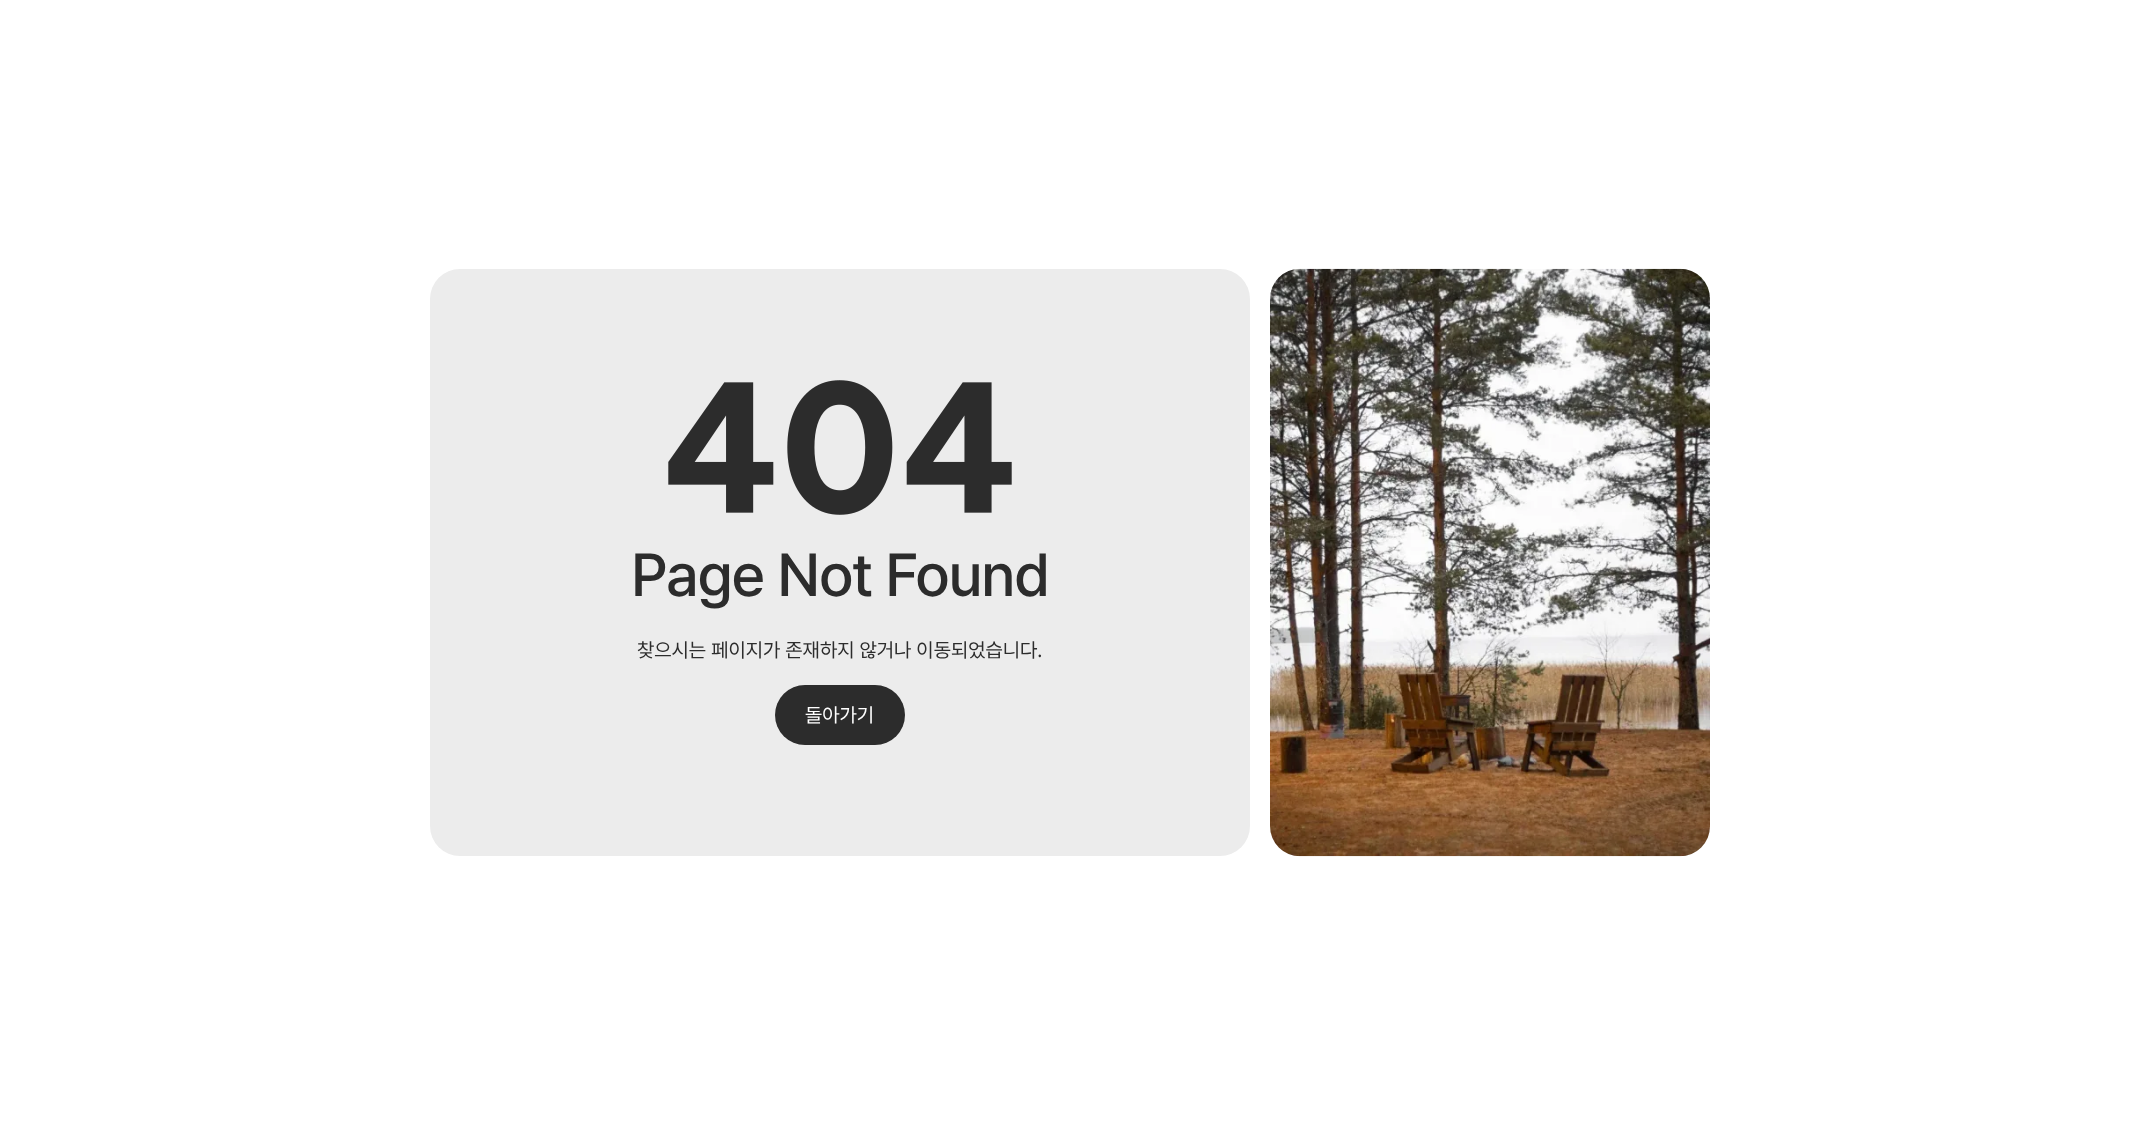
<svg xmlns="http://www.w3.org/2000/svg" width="2140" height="1125">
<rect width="100%" height="100%" fill="#fff"/>
<rect x="430" y="269" width="820" height="587" rx="30" fill="#ececec"/>
<image x="668" y="380" width="344" height="135" href="media/1.png"/>
<text x="631" y="596" style="font-family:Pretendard;font-size:60px;font-weight:500;letter-spacing:-1.25px;fill:#2c2c2c">Page Not Found</text>
<text x="637" y="657" style="font-family:Pretendard;font-size:20px;fill:#2c2c2c">찾으시는 페이지가 존재하지 않거나 이동되었습니다.</text>
<rect x="775" y="685" width="130" height="60" rx="30" fill="#2c2c2c"/>
<text x="805" y="722" style="font-family:Pretendard;font-size:20px;fill:#fff">돌아가기</text>
<image x="1270" y="268" width="440" height="589" href="media/2.png"/>
</svg>
